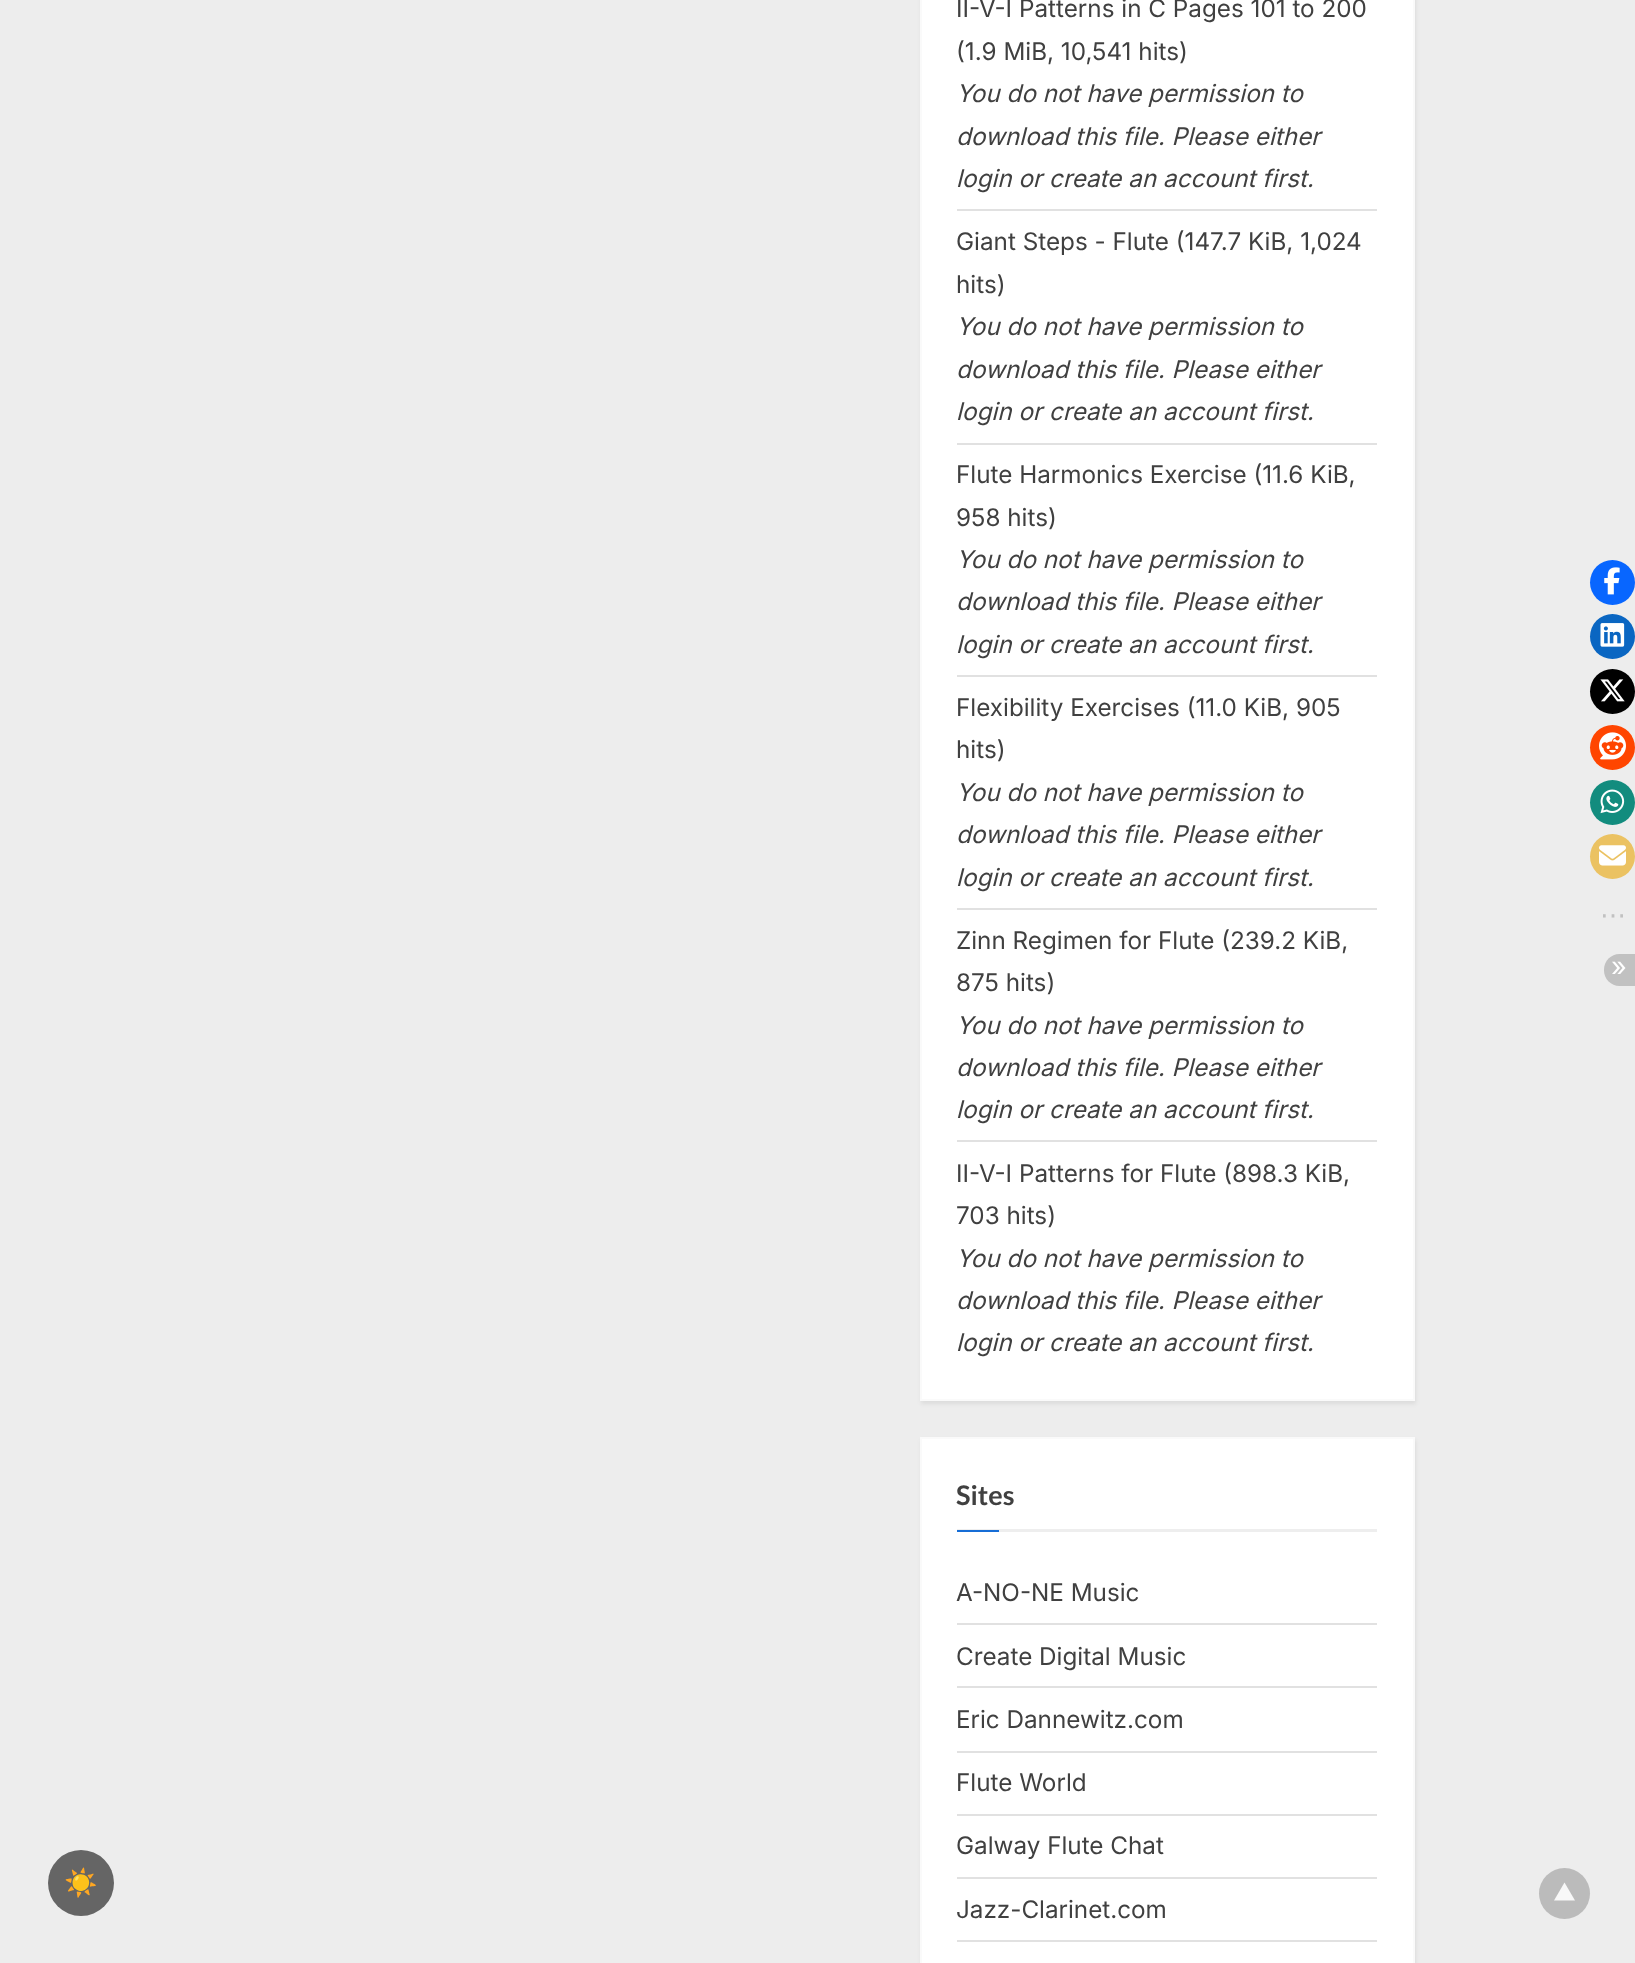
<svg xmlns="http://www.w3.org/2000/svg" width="1635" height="1963">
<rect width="100%" height="100%" fill="#ededed"/>
<rect x="921" y="-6" width="495" height="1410" fill="#00000012" filter="blur(2px)"/>
<rect x="921" y="-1" width="493" height="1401" fill="#fff" stroke="#fafafa" stroke-width="2"/>
<rect x="957" y="209" width="420" height="2" fill="#e1e1e1"/>
<text x="956" y="17" style="font-family:Inter;font-size:24.25px;fill:#404040">II-V-I Patterns in C Pages 101 to 200</text>
<text x="956" y="60" style="font-family:Inter;font-size:24.25px;fill:#404040">(1.9 MiB, 10,541 hits)</text>
<text x="956" y="102" style="font-family:Inter;font-size:24.25px;font-style:italic;fill:#404040">You do not have permission to</text>
<text x="956" y="145" style="font-family:Inter;font-size:24.25px;font-style:italic;fill:#404040">download this file. Please either</text>
<text x="956" y="187" style="font-family:Inter;font-size:24.25px;font-style:italic;fill:#404040">login or create an account first.</text>
<rect x="957" y="443" width="420" height="2" fill="#e1e1e1"/>
<text x="956" y="250" style="font-family:Inter;font-size:24.25px;fill:#404040">Giant Steps - Flute (147.7 KiB, 1,024</text>
<text x="956" y="293" style="font-family:Inter;font-size:24.25px;fill:#404040">hits)</text>
<text x="956" y="335" style="font-family:Inter;font-size:24.25px;font-style:italic;fill:#404040">You do not have permission to</text>
<text x="956" y="378" style="font-family:Inter;font-size:24.25px;font-style:italic;fill:#404040">download this file. Please either</text>
<text x="956" y="420" style="font-family:Inter;font-size:24.25px;font-style:italic;fill:#404040">login or create an account first.</text>
<rect x="957" y="675" width="420" height="2" fill="#e1e1e1"/>
<text x="956" y="483" style="font-family:Inter;font-size:24.25px;fill:#404040">Flute Harmonics Exercise (11.6 KiB,</text>
<text x="956" y="526" style="font-family:Inter;font-size:24.25px;fill:#404040">958 hits)</text>
<text x="956" y="568" style="font-family:Inter;font-size:24.25px;font-style:italic;fill:#404040">You do not have permission to</text>
<text x="956" y="610" style="font-family:Inter;font-size:24.25px;font-style:italic;fill:#404040">download this file. Please either</text>
<text x="956" y="653" style="font-family:Inter;font-size:24.25px;font-style:italic;fill:#404040">login or create an account first.</text>
<rect x="957" y="908" width="420" height="2" fill="#e1e1e1"/>
<text x="956" y="716" style="font-family:Inter;font-size:24.25px;fill:#404040">Flexibility Exercises (11.0 KiB, 905</text>
<text x="956" y="758" style="font-family:Inter;font-size:24.25px;fill:#404040">hits)</text>
<text x="956" y="801" style="font-family:Inter;font-size:24.25px;font-style:italic;fill:#404040">You do not have permission to</text>
<text x="956" y="843" style="font-family:Inter;font-size:24.25px;font-style:italic;fill:#404040">download this file. Please either</text>
<text x="956" y="886" style="font-family:Inter;font-size:24.25px;font-style:italic;fill:#404040">login or create an account first.</text>
<rect x="957" y="1140" width="420" height="2" fill="#e1e1e1"/>
<text x="956" y="949" style="font-family:Inter;font-size:24.25px;fill:#404040">Zinn Regimen for Flute (239.2 KiB,</text>
<text x="956" y="991" style="font-family:Inter;font-size:24.25px;fill:#404040">875 hits)</text>
<text x="956" y="1034" style="font-family:Inter;font-size:24.25px;font-style:italic;fill:#404040">You do not have permission to</text>
<text x="956" y="1076" style="font-family:Inter;font-size:24.25px;font-style:italic;fill:#404040">download this file. Please either</text>
<text x="956" y="1118" style="font-family:Inter;font-size:24.25px;font-style:italic;fill:#404040">login or create an account first.</text>
<text x="956" y="1182" style="font-family:Inter;font-size:24.25px;fill:#404040">II-V-I Patterns for Flute (898.3 KiB,</text>
<text x="956" y="1224" style="font-family:Inter;font-size:24.25px;fill:#404040">703 hits)</text>
<text x="956" y="1267" style="font-family:Inter;font-size:24.25px;font-style:italic;fill:#404040">You do not have permission to</text>
<text x="956" y="1309" style="font-family:Inter;font-size:24.25px;font-style:italic;fill:#404040">download this file. Please either</text>
<text x="956" y="1351" style="font-family:Inter;font-size:24.25px;font-style:italic;fill:#404040">login or create an account first.</text>
<rect x="921" y="1440" width="495" height="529" fill="#00000012" filter="blur(2px)"/>
<rect x="921" y="1438" width="493" height="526" fill="#fff" stroke="#fafafa" stroke-width="2"/>
<rect x="957" y="1529" width="420" height="3" fill="#eee"/>
<text x="956" y="1505" style="font-family:Lato;font-size:27px;font-weight:bold;fill:#404040">Sites</text>
<rect x="957" y="1530" width="42" height="2" fill="#166dd6"/>
<rect x="957" y="1623" width="420" height="2" fill="#e1e1e1"/>
<text x="956" y="1601" style="font-family:Inter;font-size:24.25px;fill:#404040">A-NO-NE Music</text>
<rect x="957" y="1686" width="420" height="2" fill="#e1e1e1"/>
<text x="956" y="1665" style="font-family:Inter;font-size:24.25px;fill:#404040">Create Digital Music</text>
<rect x="957" y="1751" width="420" height="2" fill="#e1e1e1"/>
<text x="956" y="1728" style="font-family:Inter;font-size:24.25px;fill:#404040">Eric Dannewitz.com</text>
<rect x="957" y="1814" width="420" height="2" fill="#e1e1e1"/>
<text x="956" y="1791" style="font-family:Inter;font-size:24.25px;fill:#404040">Flute World</text>
<rect x="957" y="1877" width="420" height="2" fill="#e1e1e1"/>
<text x="956" y="1854" style="font-family:Inter;font-size:24.25px;fill:#404040">Galway Flute Chat</text>
<rect x="957" y="1940" width="420" height="2" fill="#e1e1e1"/>
<text x="956" y="1918" style="font-family:Inter;font-size:24.25px;fill:#404040">Jazz-Clarinet.com</text>
<circle cx="1564.5" cy="1893.5" r="25.5" fill="#5f5f5f59"/>
<path d="M1575 1900.5h-21l10.5-18z" fill="#f8f8f8"/>
<circle cx="1612.5" cy="582.5" r="22.5" fill="#0866ff"/>
<image x="1604" y="567" width="16" height="28" href="media/1.png"/>
<circle cx="1612.5" cy="636.5" r="22.5" fill="#0a66c2"/>
<image x="1600" y="623" width="25" height="24" href="media/2.png"/>
<circle cx="1612.5" cy="691.5" r="22.5" fill="#000"/>
<image x="1600" y="679" width="25" height="23" href="media/3.png"/>
<circle cx="1612.5" cy="747.5" r="22.5" fill="#ff4500"/>
<image x="1599" y="732" width="27" height="28" href="media/4.png"/>
<circle cx="1612.5" cy="802.5" r="22.5" fill="#128c7e"/>
<image x="1600" y="789" width="25" height="25" href="media/5.png"/>
<circle cx="1612.5" cy="856.5" r="22.5" fill="#ebc262"/>
<image x="1599" y="845" width="27" height="21" href="media/6.png"/>
<text x="1600" y="924" style="font-family:DejaVu Sans;font-size:26px;fill:#c1c1c1">⋯</text>
<path d="M1619.5 954h15.5v32h-15.5c-8.5 0-15.5-7-15.5-15.5v-1c0-8.5 7-15.5 15.5-15.5z" fill="#c1c1c1"/>
<text x="1611" y="976" style="font-family:Inter;font-size:27px;fill:#fff">»</text>
<circle cx="81" cy="1883" r="33" fill="#656565"/>
<text x="64" y="1892" style="font-family:Noto Color Emoji;font-size:27px;font-weight:bold;fill:#eee">☀️</text>
</svg>
